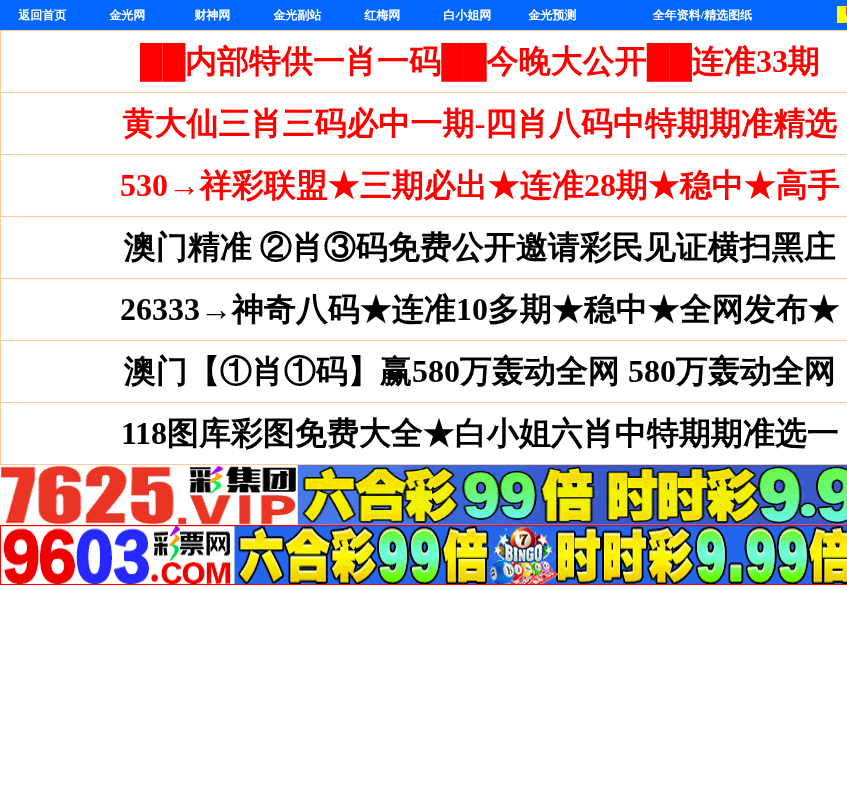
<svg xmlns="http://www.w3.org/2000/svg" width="847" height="812">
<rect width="100%" height="100%" fill="#fff"/>
<image x="0" y="0" width="847" height="585" href="media/1.png"/>
</svg>
